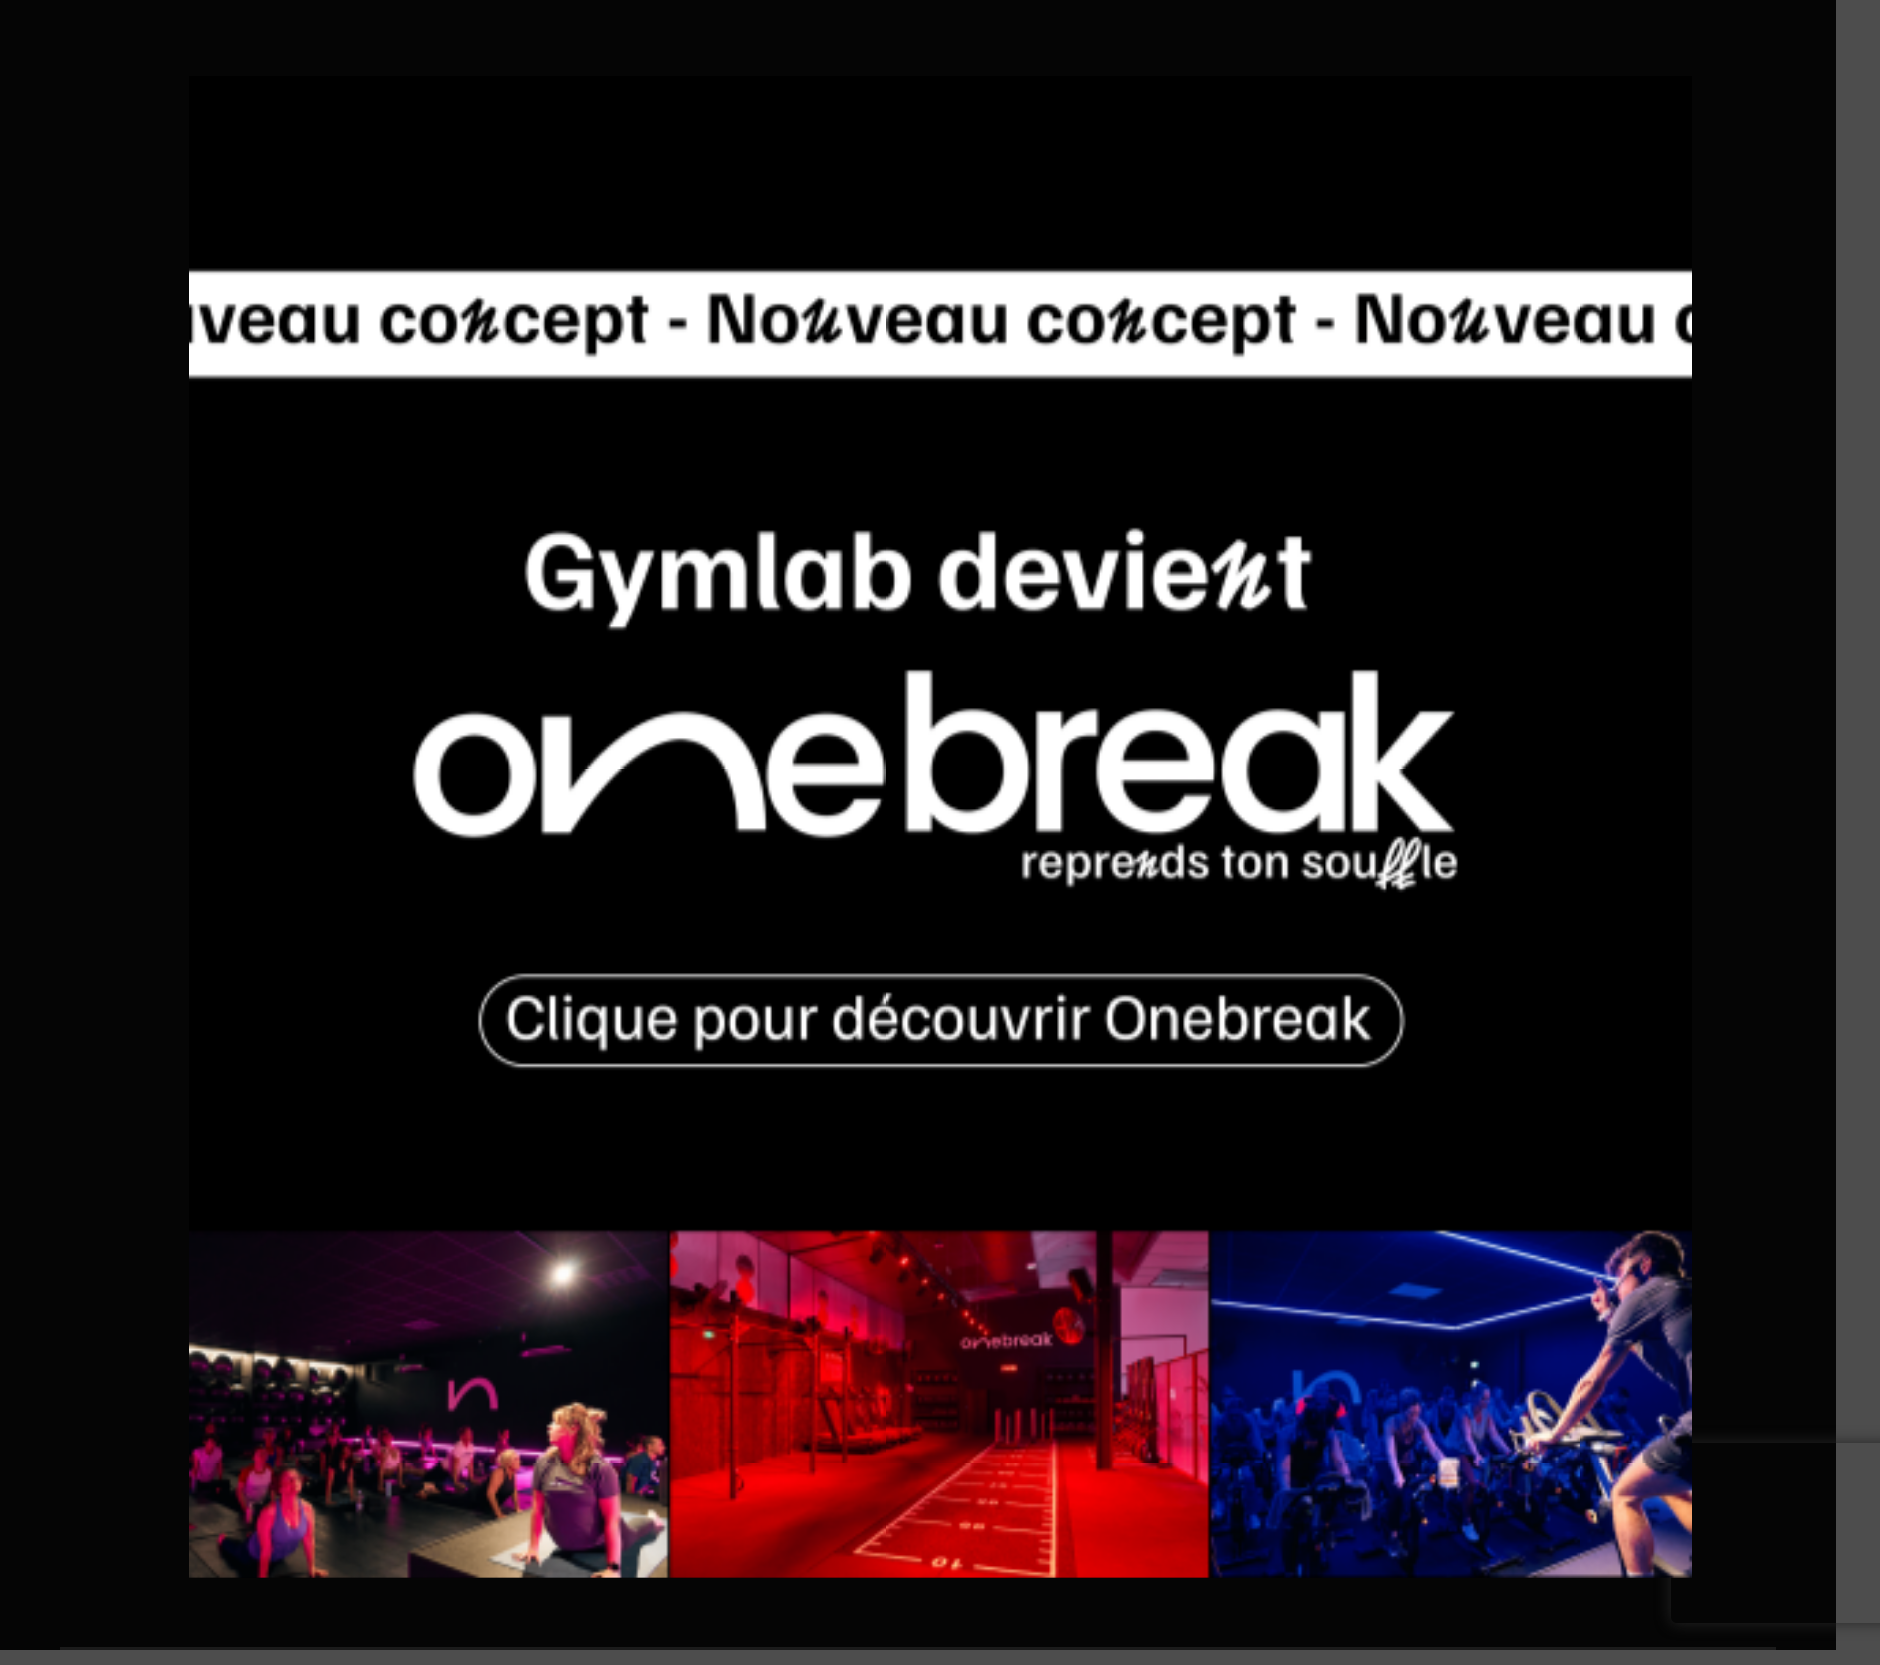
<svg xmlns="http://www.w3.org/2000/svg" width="1880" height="1665">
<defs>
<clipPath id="clip1"><path d="M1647 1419h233v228h-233zm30 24h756c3.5 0 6 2.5 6 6v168c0 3.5-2.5 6-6 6h-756c-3.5 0-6-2.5-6-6v-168c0-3.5 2.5-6 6-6z" clip-rule="evenodd"/></clipPath>
</defs>
<rect width="100%" height="100%" fill="#4d4d4d"/>
<rect width="1836" height="1650" fill="#050505"/>
<rect x="60" y="1647" width="1716" height="3" fill="#1b1b1b"/>
<g clip-path="url(#clip1)">
<rect x="1671" y="1443" width="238" height="180" rx="6" fill="#262626" filter="blur(7.5px)"/>
</g>
<image x="189" y="76" width="1503" height="1502" href="media/1.png"/>
</svg>
